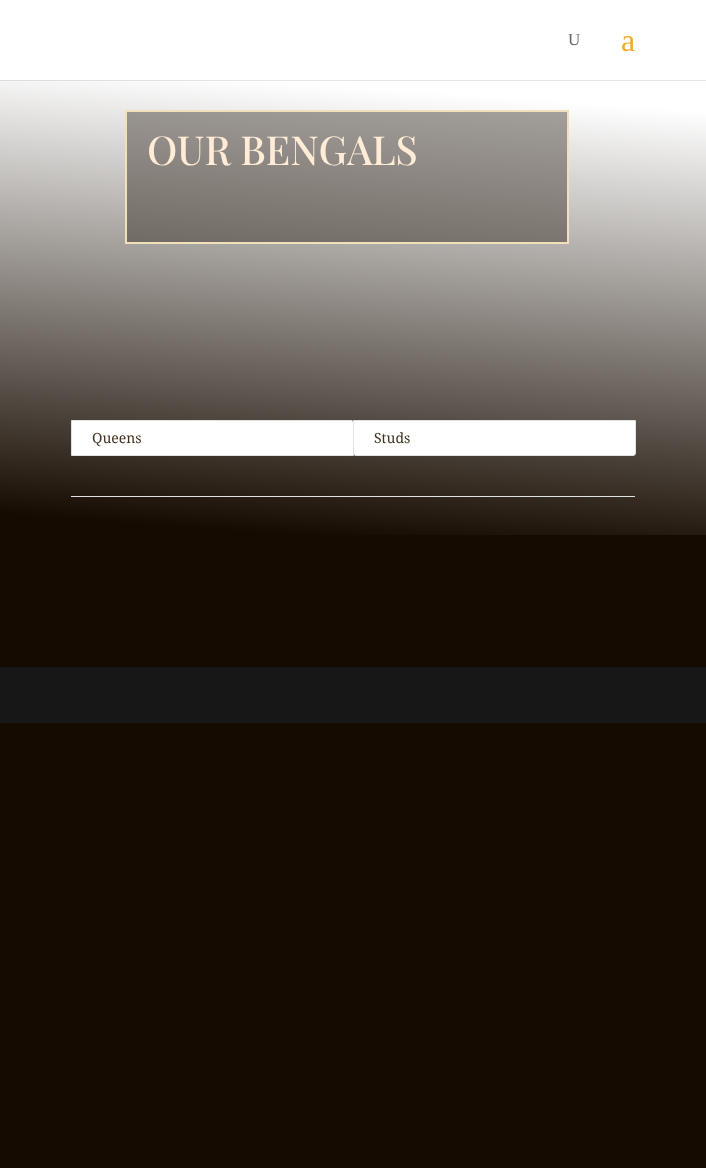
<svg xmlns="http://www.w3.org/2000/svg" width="706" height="1168">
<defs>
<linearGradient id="g1" gradientUnits="userSpaceOnUse" x1="371" y1="57" x2="335" y2="558"><stop offset="0.06" stop-color="#fff"/><stop offset="0.96" stop-color="#160b00"/></linearGradient>
<linearGradient id="g2" gradientUnits="userSpaceOnUse" x1="371" y1="57" x2="335" y2="558"><stop offset="0.06" stop-color="#e6e6e6"/><stop offset="0.96" stop-color="#140a00"/></linearGradient>
<linearGradient id="g3" gradientUnits="userSpaceOnUse" x1="371" y1="57" x2="335" y2="558"><stop offset="0.06" stop-color="#a6a29e"/><stop offset="0.96" stop-color="#1d1208"/></linearGradient>
</defs>
<rect width="100%" height="100%" fill="#160b00"/>
<rect width="706" height="80" fill="#fff"/>
<text x="568" y="45" style="font-family:Liberation Serif;font-size:17px;fill:#666">U</text>
<text x="621" y="51" style="font-family:Liberation Serif;font-size:32px;fill:#f2ac29">a</text>
<rect y="81" width="706" height="454" fill="url(#g1)"/>
<rect y="80" width="706" height="1" fill="url(#g2)"/>
<rect x="127" y="112" width="440" height="130" fill="url(#g3)"/>
<rect x="126" y="111" width="442" height="132" fill="none" stroke="#f2e0bd" stroke-width="2"/>
<text x="147" y="165" style="font-family:Playfair Display;font-size:40px;font-weight:500;fill:#ffebd6">OUR BENGALS</text>
<path d="M71.5 420.5h279.5c1.5 0 2.5 1 2.5 2.5v32.5h-282z" fill="#fff" stroke="#e2e2e2"/>
<text x="92" y="443" style="font-family:Noto Serif;font-size:14px;fill:#40311f">Queens</text>
<path d="M353.5 420.5h282v32.5c0 1.5-1 2.5-2.5 2.5h-277c-1.5 0-2.5-1-2.5-2.5z" fill="#fff" stroke="#e2e2e2"/>
<text x="374" y="443" style="font-family:Noto Serif;font-size:14px;fill:#40311f">Studs</text>
<rect x="71" y="496" width="564" height="1" fill="#e2e2e2"/>
<rect y="667" width="706" height="56" fill="#171717"/>
</svg>
